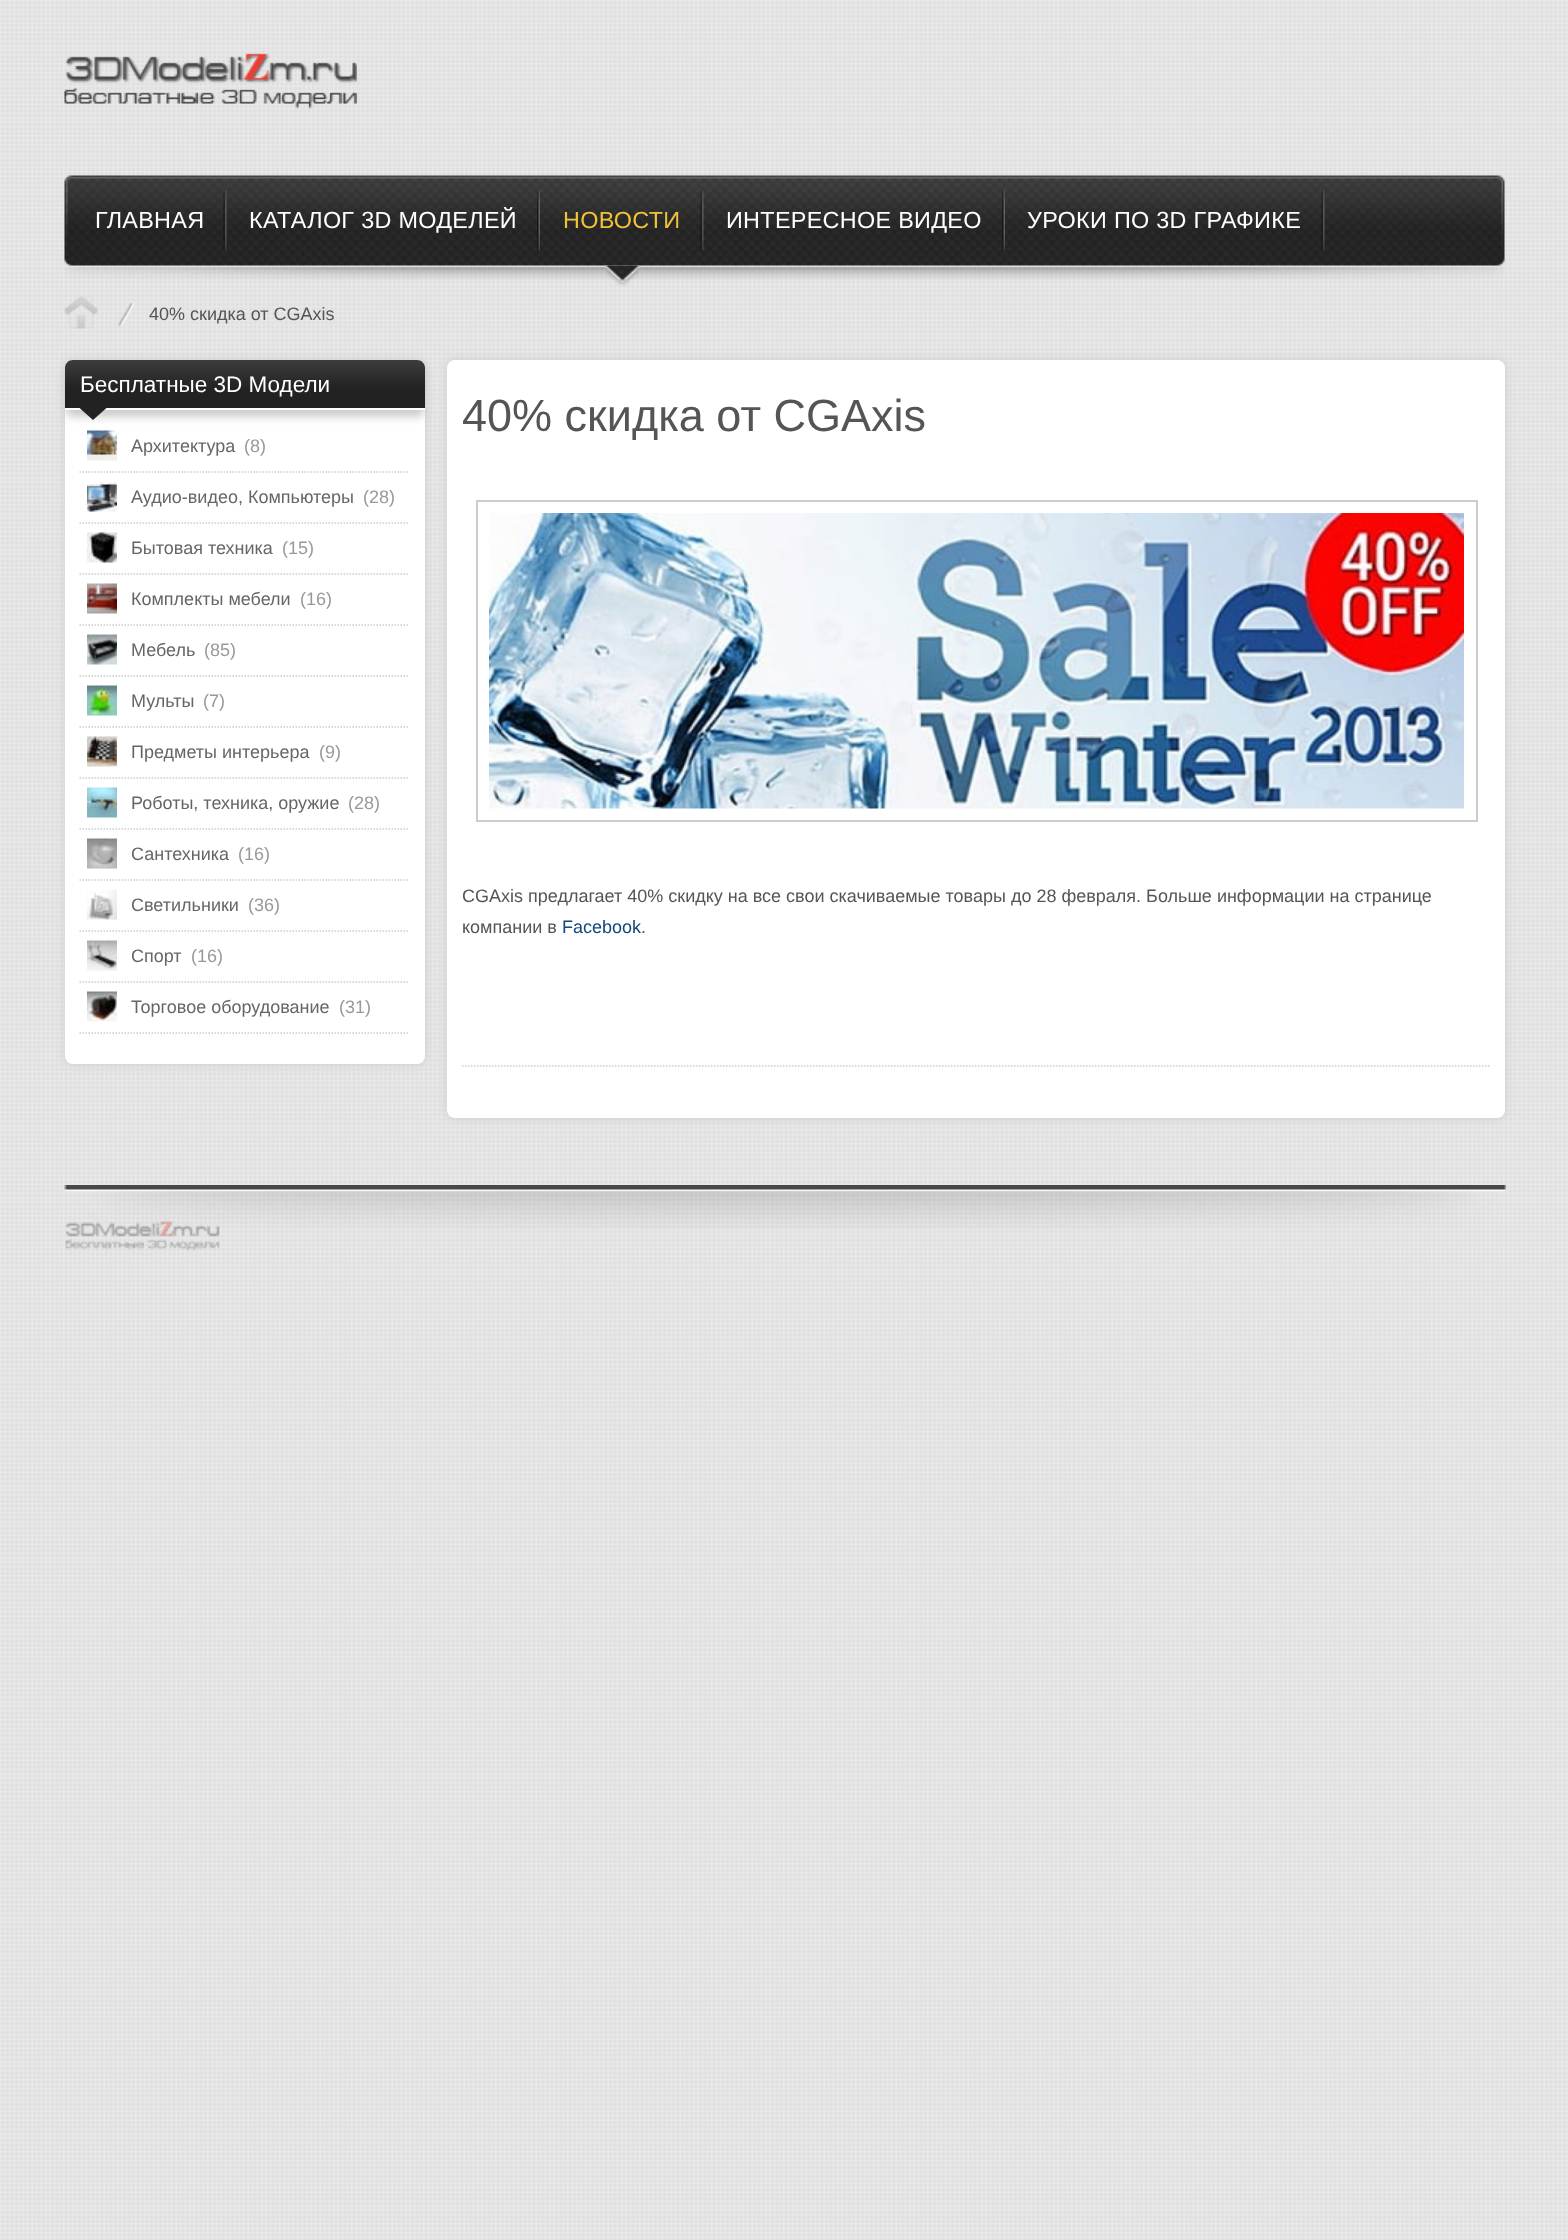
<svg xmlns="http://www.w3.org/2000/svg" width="1568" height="2240">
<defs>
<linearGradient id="g1" gradientUnits="userSpaceOnUse" x1="245" y1="360" x2="245" y2="408"><stop offset="0" stop-color="#3d3d3d"/><stop offset="0.6" stop-color="#222"/><stop offset="1" stop-color="#222"/></linearGradient>
</defs>
<rect width="100%" height="100%" fill="#fff"/>
<image x="0" y="0" width="1568" height="2240" href="media/1.png"/>
<image x="64" y="53" width="293" height="56" href="media/2.png"/>
<image x="64" y="175" width="1441" height="105" href="media/3.png"/>
<image x="223" y="190" width="4" height="61" href="media/4.png"/>
<text x="95" y="228" style="font-family:Liberation Sans;font-size:23.4px;letter-spacing:0.3px;fill:#fff">ГЛАВНАЯ</text>
<image x="537" y="190" width="3" height="61" href="media/5.png"/>
<text x="249" y="228" style="font-family:Liberation Sans;font-size:23.4px;letter-spacing:0.3px;fill:#fff">КАТАЛОГ 3D МОДЕЛЕЙ</text>
<image x="606" y="265" width="33" height="21" href="media/6.png"/>
<image x="700" y="190" width="4" height="61" href="media/7.png"/>
<text x="563" y="228" style="font-family:Liberation Sans;font-size:23.4px;letter-spacing:0.3px;fill:#f0c237">НОВОСТИ</text>
<image x="1002" y="190" width="3" height="61" href="media/8.png"/>
<text x="726" y="228" style="font-family:Liberation Sans;font-size:23.4px;letter-spacing:0.3px;fill:#fff">ИНТЕРЕСНОЕ ВИДЕО</text>
<image x="1321" y="190" width="4" height="61" href="media/9.png"/>
<text x="1027" y="228" style="font-family:Liberation Sans;font-size:23.4px;letter-spacing:0.3px;fill:#fff">УРОКИ ПО 3D ГРАФИКЕ</text>
<image x="118" y="302" width="17" height="24" href="media/10.png"/>
<image x="64" y="296" width="34" height="33" href="media/11.png"/>
<text x="149" y="320" style="font-family:Liberation Sans;font-size:18px;fill:#555">40% скидка от CGAxis</text>
<rect x="65" y="360" width="360" height="704" rx="8" fill="#ccc" filter="blur(4px)"/>
<rect x="65" y="360" width="360" height="704" rx="8" fill="#fff"/>
<rect x="65" y="368" width="360" height="49" rx="8" fill="#ccc" filter="blur(4px)"/>
<path d="M73 360h344c4.5 0 8 3.5 8 8v40h-360v-40c0-4.5 3.5-8 8-8z" fill="url(#g1)"/>
<rect x="65" y="408" width="360" height="2" fill="#fff"/>
<text x="80" y="392" style="font-family:Liberation Sans;font-size:22.5px;fill:#fff">Бесплатные 3D Модели</text>
<path d="M79.5 408h27l-13.5 12z" fill="#222"/>
<path d="M79.5 472h330" fill="none" stroke="#ccc" stroke-width="1.5" stroke-dasharray="1.5 1.5"/>
<image x="87" y="430" width="30" height="31" href="media/12.png"/>
<text x="131" y="452" style="font-family:Liberation Sans;font-size:18px;fill:#666">Архитектура</text>
<text x="244" y="452" style="font-family:Liberation Sans;font-size:18px;fill:#999">(8)</text>
<path d="M79.5 523h330" fill="none" stroke="#ccc" stroke-width="1.5" stroke-dasharray="1.5 1.5"/>
<image x="87" y="481" width="30" height="31" href="media/13.png"/>
<text x="131" y="503" style="font-family:Liberation Sans;font-size:18px;fill:#666">Аудио-видео, Компьютеры</text>
<text x="363" y="503" style="font-family:Liberation Sans;font-size:18px;fill:#999">(28)</text>
<path d="M79.5 574h330" fill="none" stroke="#ccc" stroke-width="1.5" stroke-dasharray="1.5 1.5"/>
<image x="87" y="532" width="30" height="31" href="media/14.png"/>
<text x="131" y="554" style="font-family:Liberation Sans;font-size:18px;fill:#666">Бытовая техника</text>
<text x="282" y="554" style="font-family:Liberation Sans;font-size:18px;fill:#999">(15)</text>
<path d="M79.5 625h330" fill="none" stroke="#ccc" stroke-width="1.5" stroke-dasharray="1.5 1.5"/>
<image x="87" y="583" width="30" height="31" href="media/15.png"/>
<text x="131" y="605" style="font-family:Liberation Sans;font-size:18px;fill:#666">Комплекты мебели</text>
<text x="300" y="605" style="font-family:Liberation Sans;font-size:18px;fill:#999">(16)</text>
<path d="M79.5 676h330" fill="none" stroke="#ccc" stroke-width="1.5" stroke-dasharray="1.5 1.5"/>
<image x="87" y="634" width="30" height="31" href="media/16.png"/>
<text x="131" y="656" style="font-family:Liberation Sans;font-size:18px;fill:#666">Мебель</text>
<text x="204" y="656" style="font-family:Liberation Sans;font-size:18px;fill:#999">(85)</text>
<path d="M79.5 727h330" fill="none" stroke="#ccc" stroke-width="1.5" stroke-dasharray="1.5 1.5"/>
<image x="87" y="685" width="30" height="31" href="media/17.png"/>
<text x="131" y="707" style="font-family:Liberation Sans;font-size:18px;fill:#666">Мульты</text>
<text x="203" y="707" style="font-family:Liberation Sans;font-size:18px;fill:#999">(7)</text>
<path d="M79.5 778h330" fill="none" stroke="#ccc" stroke-width="1.5" stroke-dasharray="1.5 1.5"/>
<image x="87" y="736" width="30" height="31" href="media/18.png"/>
<text x="131" y="758" style="font-family:Liberation Sans;font-size:18px;fill:#666">Предметы интерьера</text>
<text x="319" y="758" style="font-family:Liberation Sans;font-size:18px;fill:#999">(9)</text>
<path d="M79.5 829h330" fill="none" stroke="#ccc" stroke-width="1.5" stroke-dasharray="1.5 1.5"/>
<image x="87" y="787" width="30" height="31" href="media/19.png"/>
<text x="131" y="809" style="font-family:Liberation Sans;font-size:18px;fill:#666">Роботы, техника, оружие</text>
<text x="348" y="809" style="font-family:Liberation Sans;font-size:18px;fill:#999">(28)</text>
<path d="M79.5 880h330" fill="none" stroke="#ccc" stroke-width="1.5" stroke-dasharray="1.5 1.5"/>
<image x="87" y="838" width="30" height="31" href="media/20.png"/>
<text x="131" y="860" style="font-family:Liberation Sans;font-size:18px;fill:#666">Сантехника</text>
<text x="238" y="860" style="font-family:Liberation Sans;font-size:18px;fill:#999">(16)</text>
<path d="M79.5 931h330" fill="none" stroke="#ccc" stroke-width="1.5" stroke-dasharray="1.5 1.5"/>
<image x="87" y="889" width="30" height="31" href="media/21.png"/>
<text x="131" y="911" style="font-family:Liberation Sans;font-size:18px;fill:#666">Светильники</text>
<text x="248" y="911" style="font-family:Liberation Sans;font-size:18px;fill:#999">(36)</text>
<path d="M79.5 982h330" fill="none" stroke="#ccc" stroke-width="1.5" stroke-dasharray="1.5 1.5"/>
<image x="87" y="940" width="30" height="31" href="media/22.png"/>
<text x="131" y="962" style="font-family:Liberation Sans;font-size:18px;fill:#666">Спорт</text>
<text x="191" y="962" style="font-family:Liberation Sans;font-size:18px;fill:#999">(16)</text>
<path d="M79.5 1033h330" fill="none" stroke="#ccc" stroke-width="1.5" stroke-dasharray="1.5 1.5"/>
<image x="87" y="991" width="30" height="31" href="media/23.png"/>
<text x="131" y="1013" style="font-family:Liberation Sans;font-size:18px;fill:#666">Торговое оборудование</text>
<text x="339" y="1013" style="font-family:Liberation Sans;font-size:18px;fill:#999">(31)</text>
<rect x="447" y="360" width="1058" height="758" rx="8" fill="#ccc" filter="blur(4px)"/>
<rect x="447" y="360" width="1058" height="758" rx="8" fill="#fff"/>
<path d="M462 1066h1027.5" fill="none" stroke="#ccc" stroke-width="1.5" stroke-dasharray="1.5 1.5"/>
<text x="462" y="431" style="font-family:Liberation Sans;font-size:45px;fill:#555">40% скидка от CGAxis</text>
<rect x="477" y="501" width="1000" height="320" fill="none" stroke="#ccc" stroke-width="2"/>
<image x="489" y="513" width="975" height="296" href="media/24.png"/>
<text x="462" y="902" style="font-family:Liberation Sans;font-size:18px;fill:#555">CGAxis предлагает 40% скидку на все свои скачиваемые товары до 28 февраля. Больше информации на странице</text>
<text x="462" y="933" style="font-family:Liberation Sans;font-size:18px;fill:#555">компании в</text>
<text x="562" y="933" style="font-family:Liberation Sans;font-size:18px;fill:#134679">Facebook</text>
<text x="641" y="933" style="font-family:Liberation Sans;font-size:18px;fill:#555">.</text>
<image x="64" y="1185" width="1442" height="44" href="media/25.png"/>
<image x="65" y="1221" width="155" height="30" href="media/26.png"/>
</svg>
